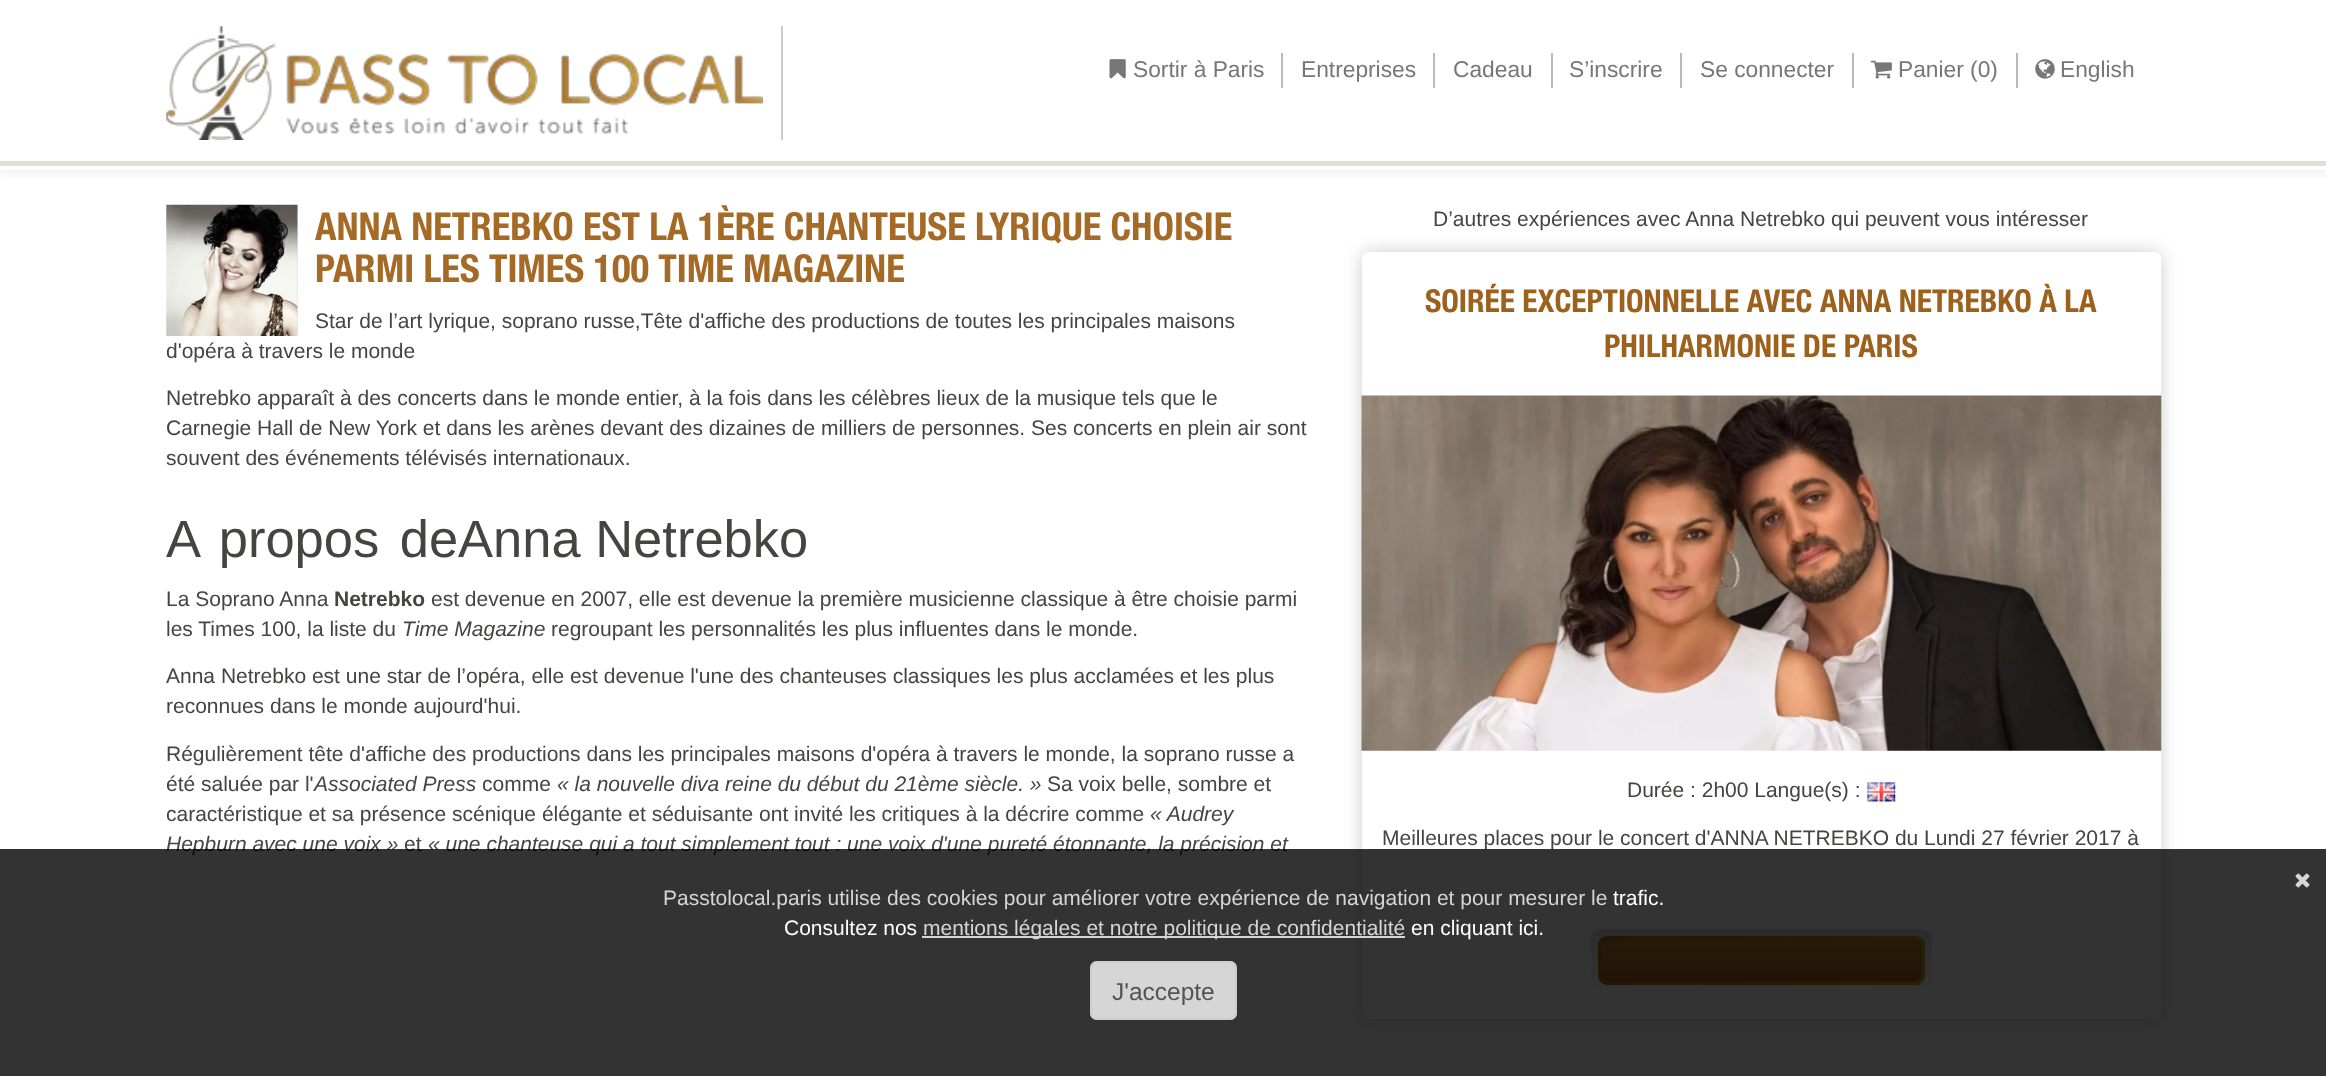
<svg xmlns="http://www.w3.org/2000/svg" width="2326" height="1076">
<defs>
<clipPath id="clip1"><rect x="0" y="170" width="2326" height="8"/></clipPath>
<clipPath id="clip2"><path d="M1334 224h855v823h-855zm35 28h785c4 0 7 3 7 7v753c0 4-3 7-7 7h-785c-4 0-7-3-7-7v-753c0-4 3-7 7-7z" clip-rule="evenodd"/></clipPath>
<linearGradient id="g1" gradientUnits="userSpaceOnUse" x1="1761" y1="929" x2="1761" y2="992"><stop offset="0" stop-color="#d9d9d9"/><stop offset="1" stop-color="#fff"/></linearGradient>
<linearGradient id="g2" gradientUnits="userSpaceOnUse" x1="1667" y1="867" x2="1855" y2="1055"><stop offset="0" stop-color="#aa6f21"/><stop offset="1" stop-color="#ca992e"/></linearGradient>
<linearGradient id="g3" gradientUnits="userSpaceOnUse" x1="1761" y1="940" x2="1761" y2="982"><stop offset="0" stop-color="#bb8528"/><stop offset="1" stop-color="#a5641e"/></linearGradient>
</defs>
<rect width="100%" height="100%" fill="#fff"/>
<g clip-path="url(#clip1)">
<rect width="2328" height="170" fill="#0000001a" filter="blur(9px)"/>
</g>
<rect y="161" width="2326" height="5" fill="#e3ddd6"/>
<rect y="169" width="2326" height="1" fill="#fff"/>
<image x="166" y="26" width="597" height="114" href="media/1.png"/>
<rect x="781" y="26" width="2" height="114" fill="#ccc"/>
<rect x="1281" y="53" width="2" height="35" fill="#bababa"/>
<image x="1109" y="59" width="17" height="20" href="media/2.png"/>
<text x="1133" y="77" style="font-family:Liberation Sans;font-size:22.75px;fill:#777">Sortir à Paris</text>
<rect x="1433" y="53" width="2" height="35" fill="#bababa"/>
<text x="1301" y="77" style="font-family:Liberation Sans;font-size:22.75px;fill:#777">Entreprises</text>
<rect x="1551" y="53" width="2" height="35" fill="#bababa"/>
<text x="1453" y="77" style="font-family:Liberation Sans;font-size:22.75px;fill:#777">Cadeau</text>
<rect x="1680" y="53" width="2" height="35" fill="#bababa"/>
<text x="1569" y="77" style="font-family:Liberation Sans;font-size:22.75px;fill:#777">S’inscrire</text>
<rect x="1852" y="53" width="2" height="35" fill="#bababa"/>
<text x="1700" y="77" style="font-family:Liberation Sans;font-size:22.75px;fill:#777">Se connecter</text>
<rect x="2016" y="53" width="2" height="35" fill="#bababa"/>
<image x="1870" y="60" width="22" height="19" href="media/3.png"/>
<text x="1898" y="77" style="font-family:Liberation Sans;font-size:22.75px;fill:#777">Panier (0)</text>
<image x="2035" y="59" width="20" height="20" href="media/4.png"/>
<text x="2060" y="77" style="font-family:Liberation Sans;font-size:22.75px;fill:#777">English</text>
<image x="166" y="204" width="132" height="132" href="media/5.png"/>
<text x="315" y="240" style="font-family:'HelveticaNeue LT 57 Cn';font-size:38.5px;font-weight:bold;fill:#a56a26">ANNA NETREBKO EST LA 1ÈRE CHANTEUSE LYRIQUE CHOISIE</text>
<text x="315" y="282" style="font-family:'HelveticaNeue LT 57 Cn';font-size:38.5px;font-weight:bold;fill:#a56a26">PARMI LES TIMES 100 TIME MAGAZINE</text>
<text x="315" y="328" style="font-family:Liberation Sans;font-size:21px;fill:#454443">Star de l’art lyrique, soprano russe,Tête d'affiche des productions de toutes les principales maisons</text>
<text x="166" y="358" style="font-family:Liberation Sans;font-size:21px;fill:#454443">d'opéra à travers le monde</text>
<text x="166" y="405" style="font-family:Liberation Sans;font-size:21px;fill:#454443">Netrebko apparaît à des concerts dans le monde entier, à la fois dans les célèbres lieux de la musique tels que le</text>
<text x="166" y="435" style="font-family:Liberation Sans;font-size:21px;fill:#454443">Carnegie Hall de New York et dans les arènes devant des dizaines de milliers de personnes. Ses concerts en plein air sont</text>
<text x="166" y="465" style="font-family:Liberation Sans;font-size:21px;fill:#454443">souvent des événements télévisés internationaux.</text>
<text x="166" y="557" word-spacing="6" style="font-family:Liberation Sans;font-size:52.5px;fill:#454443">A propos de</text>
<text x="458" y="557" style="font-family:Liberation Sans;font-size:52.5px;fill:#454443">Anna Netrebko</text>
<text x="166" y="606" style="font-family:Liberation Sans;font-size:21px;fill:#454443">La Soprano Anna</text>
<text x="334" y="606" style="font-family:Liberation Sans;font-size:21px;font-weight:bold;fill:#454443">Netrebko</text>
<text x="431" y="606" style="font-family:Liberation Sans;font-size:21px;fill:#454443">est devenue en 2007, elle est devenue la première musicienne classique à être choisie parmi</text>
<text x="166" y="636" style="font-family:Liberation Sans;font-size:21px;fill:#454443">les Times 100, la liste du</text>
<text x="402" y="636" style="font-family:Liberation Sans;font-size:21px;font-style:italic;fill:#454443">Time Magazine</text>
<text x="551" y="636" style="font-family:Liberation Sans;font-size:21px;fill:#454443">regroupant les personnalités les plus influentes dans le monde.</text>
<text x="166" y="683" style="font-family:Liberation Sans;font-size:21px;fill:#454443">Anna Netrebko est une star de l’opéra, elle est devenue l'une des chanteuses classiques les plus acclamées et les plus</text>
<text x="166" y="713" style="font-family:Liberation Sans;font-size:21px;fill:#454443">reconnues dans le monde aujourd'hui.</text>
<text x="166" y="761" style="font-family:Liberation Sans;font-size:21px;fill:#454443">Régulièrement tête d'affiche des productions dans les principales maisons d'opéra à travers le monde, la soprano russe a</text>
<text x="166" y="791" style="font-family:Liberation Sans;font-size:21px;fill:#454443">été saluée par l'</text>
<text x="314" y="791" style="font-family:Liberation Sans;font-size:21px;font-style:italic;fill:#454443">Associated Press</text>
<text x="482" y="791" style="font-family:Liberation Sans;font-size:21px;fill:#454443">comme</text>
<text x="557" y="791" style="font-family:Liberation Sans;font-size:21px;font-style:italic;fill:#454443">« la nouvelle diva reine du début du 21ème siècle. »</text>
<text x="1047" y="791" style="font-family:Liberation Sans;font-size:21px;fill:#454443">Sa voix belle, sombre et</text>
<text x="166" y="821" style="font-family:Liberation Sans;font-size:21px;fill:#454443">caractéristique et sa présence scénique élégante et séduisante ont invité les critiques à la décrire comme</text>
<text x="1150" y="821" style="font-family:Liberation Sans;font-size:21px;font-style:italic;fill:#454443">« Audrey</text>
<text x="166" y="851" style="font-family:Liberation Sans;font-size:21px;font-style:italic;fill:#454443">Hepburn avec une voix »</text>
<text x="404" y="851" style="font-family:Liberation Sans;font-size:21px;fill:#454443">et</text>
<text x="428" y="851" style="font-family:Liberation Sans;font-size:21px;font-style:italic;fill:#454443">« une chanteuse qui a tout simplement tout : une voix d'une pureté étonnante, la précision et</text>
<text x="1433" y="226" style="font-family:Liberation Sans;font-size:21px;fill:#454443">D’autres expériences avec Anna Netrebko qui peuvent vous intéresser</text>
<g clip-path="url(#clip2)">
<rect x="1362" y="252" width="799" height="767" rx="7" fill="#00000033" filter="blur(9px)"/>
</g>
<text x="1425" y="312" style="font-family:'HelveticaNeue LT 57 Cn';font-size:31.5px;font-weight:bold;fill:#9c611d">SOIRÉE EXCEPTIONNELLE AVEC ANNA NETREBKO À LA</text>
<text x="1604" y="357" style="font-family:'HelveticaNeue LT 57 Cn';font-size:31.5px;font-weight:bold;fill:#9c611d">PHILHARMONIE DE PARIS</text>
<image x="1361" y="395" width="801" height="356" href="media/6.png"/>
<text x="1627" y="797" style="font-family:Liberation Sans;font-size:21px;fill:#454443">Durée : 2h00 Langue(s) :</text>
<image x="1867" y="782" width="29" height="20" href="media/7.png"/>
<text x="1382" y="845" style="font-family:Liberation Sans;font-size:21px;fill:#454443">Meilleures places pour le concert d'ANNA NETREBKO du Lundi 27 février 2017 à</text>
<rect x="1591" y="929" width="341" height="63" rx="9" fill="url(#g1)"/>
<rect x="1598" y="936" width="327" height="49" rx="9" fill="url(#g2)"/>
<rect x="1601" y="940" width="321" height="42" rx="9" fill="url(#g3)"/>
<rect y="849" width="2326" height="227" fill="#000000cc"/>
<image x="2295" y="873" width="15" height="15" href="media/8.png"/>
<text x="663" y="905" style="font-family:Liberation Sans;font-size:21px;fill:#d5d5d5">Passtolocal.paris utilise des cookies pour améliorer votre expérience de navigation et pour mesurer le</text>
<text x="1613" y="905" style="font-family:Liberation Sans;font-size:21px;fill:#fff">trafic.</text>
<text x="784" y="935" style="font-family:Liberation Sans;font-size:21px;fill:#fff">Consultez nos</text>
<rect x="922" y="936" width="483" height="2" fill="#ffffffcc"/>
<text x="923" y="935" style="font-family:Liberation Sans;font-size:21px;fill:#d5d5d5">mentions légales et notre politique de confidentialité</text>
<text x="1411" y="935" style="font-family:Liberation Sans;font-size:21px;fill:#fff">en cliquant ici.</text>
<rect x="1090" y="961" width="147" height="59" rx="7" fill="#ffffffcc"/>
<rect x="1091" y="962" width="145" height="57" rx="6" fill="none" stroke="#cccccccc" stroke-width="2"/>
<text x="1112" y="1000" style="font-family:Liberation Sans;font-size:24.5px;fill:#545454">J'accepte</text>
</svg>
